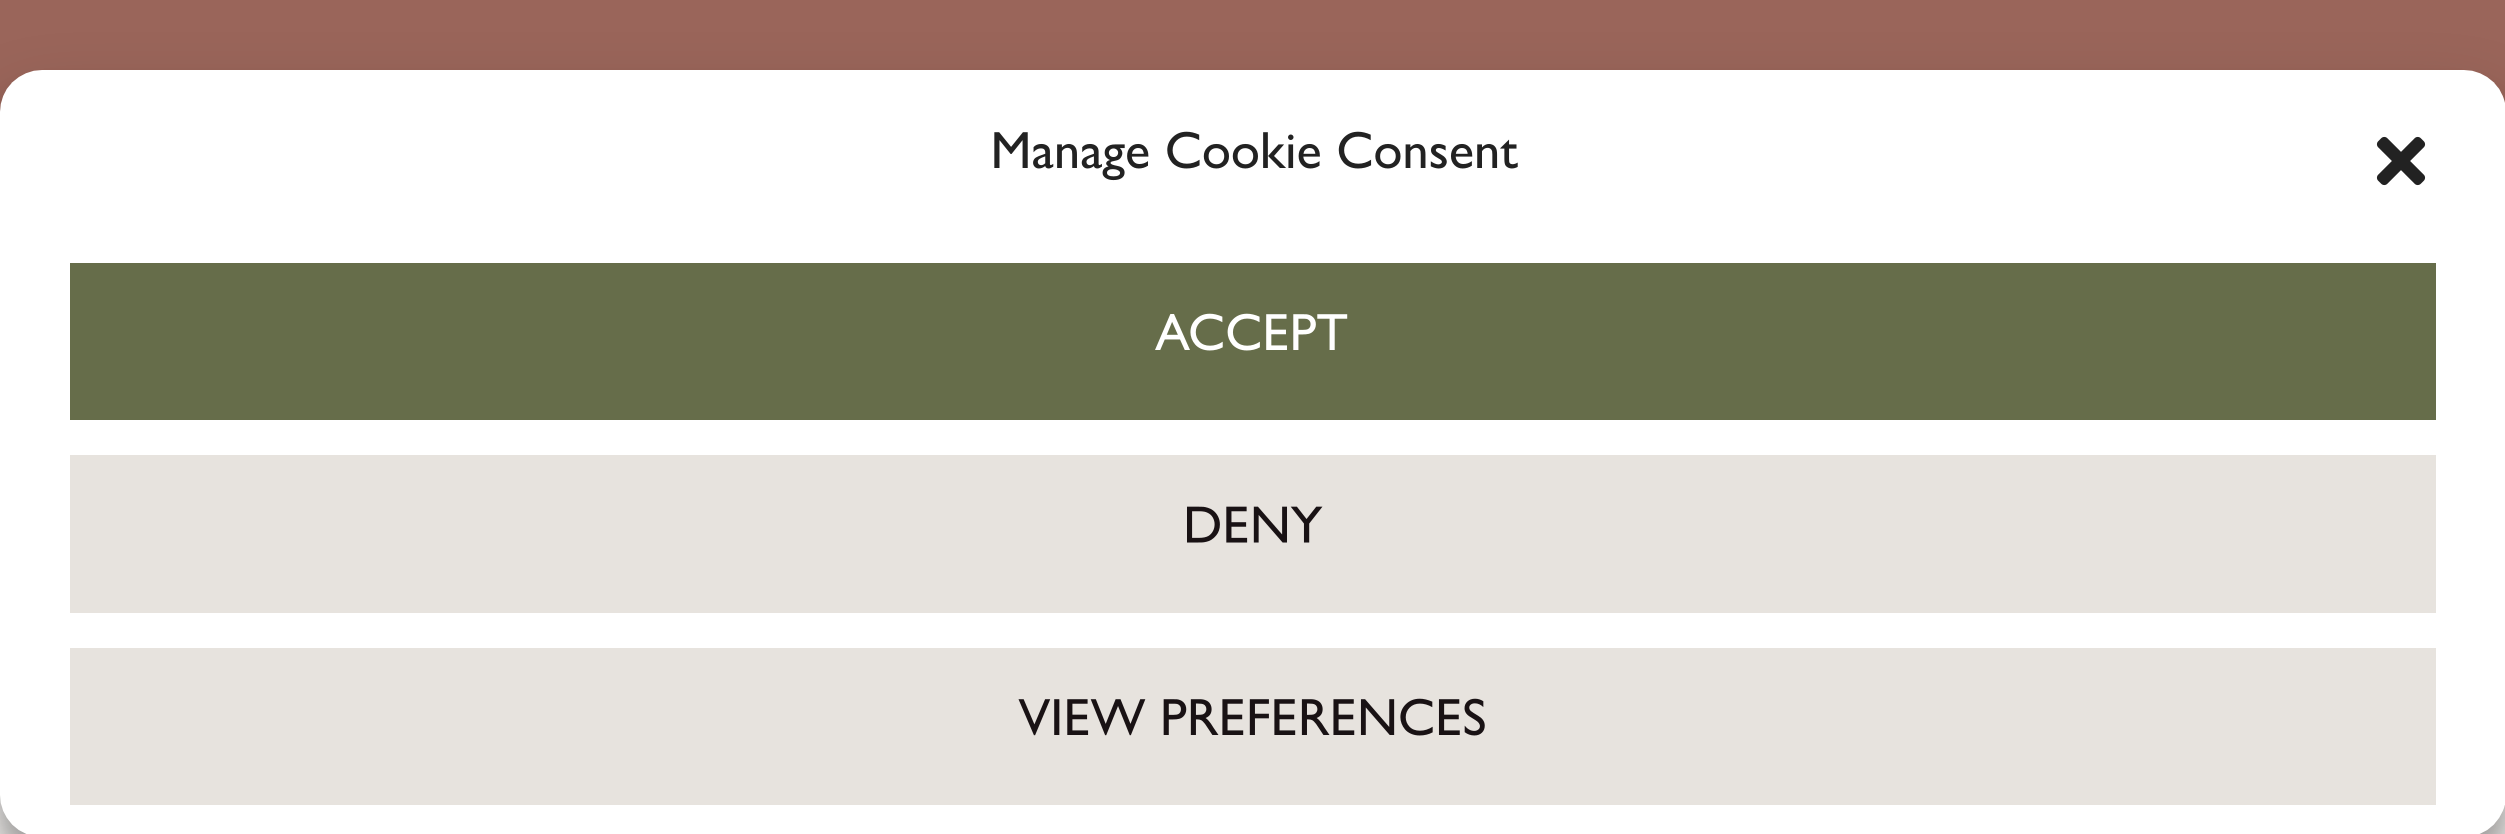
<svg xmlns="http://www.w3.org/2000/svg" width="2505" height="834">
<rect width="100%" height="100%" fill="#f4f2f0"/>
<rect width="2505" height="112" fill="#9a655a"/>
<rect y="91" width="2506" height="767" rx="42" fill="#0000003b" filter="blur(10.5px)"/>
<rect y="105" width="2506" height="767" rx="42" fill="#00000030" filter="blur(35px)"/>
<rect y="70" width="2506" height="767" rx="42" fill="#fff"/>
<image x="994" y="131" width="524" height="50" href="media/1.png"/>
<image x="2376" y="136" width="50" height="50" href="media/2.png"/>
<rect x="70" y="263" width="2366" height="157" fill="#666d4a"/>
<image x="1155" y="313" width="193" height="38" href="media/3.png"/>
<rect x="70" y="455" width="2366" height="158" fill="#e7e3de"/>
<image x="1187" y="506" width="136" height="37" href="media/4.png"/>
<rect x="70" y="648" width="2366" height="157" fill="#e7e3de"/>
<image x="1018" y="698" width="467" height="38" href="media/5.png"/>
</svg>
